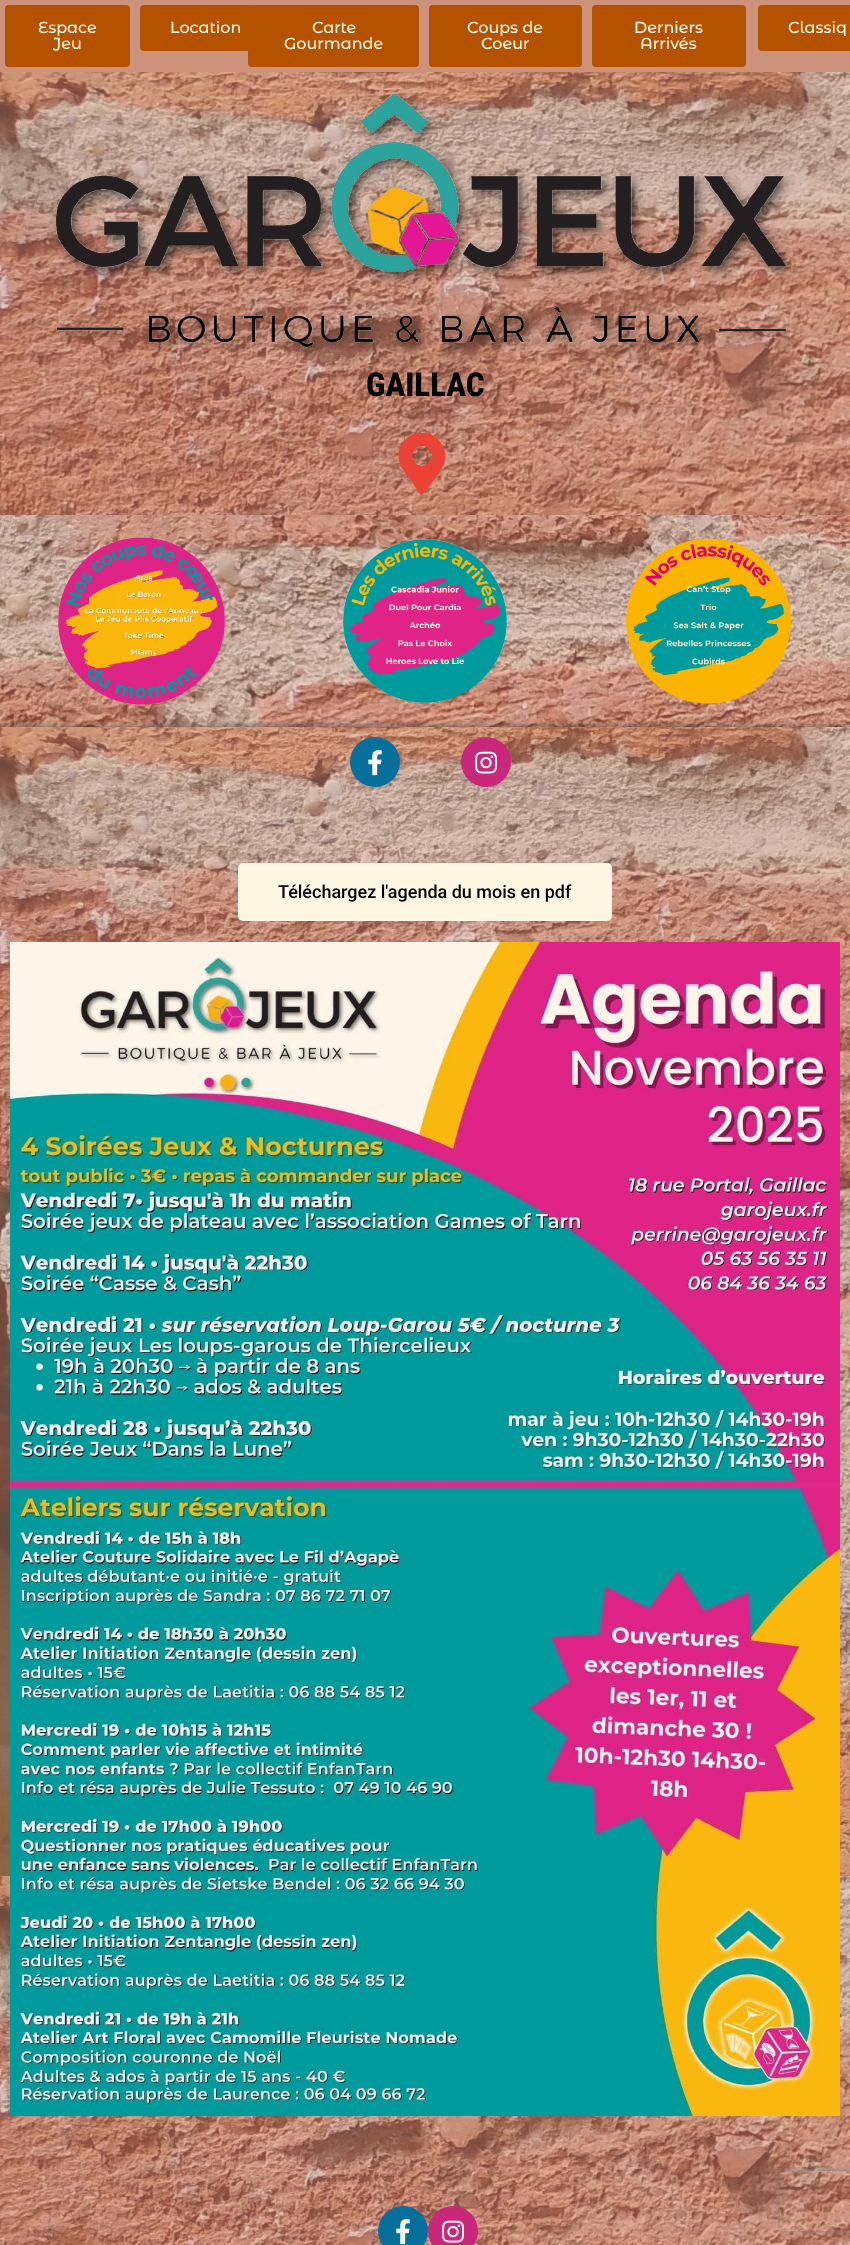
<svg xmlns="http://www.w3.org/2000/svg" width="850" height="2245">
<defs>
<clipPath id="clip1"><path d="M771 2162h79v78h-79zm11 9h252c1 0 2 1 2 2v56c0 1-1 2-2 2h-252c-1 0-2-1-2-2v-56c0-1 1-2 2-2z" clip-rule="evenodd"/></clipPath>
</defs>
<rect width="100%" height="100%" fill="#cc927c"/>
<rect x="5" y="5" width="125" height="62" rx="4" fill="#b45200"/>
<text x="38" y="33" style="font-family:Montserrat Alternates;font-size:16px;font-weight:500;fill:#fff8e6">Espace</text>
<text x="53" y="49" style="font-family:Montserrat Alternates;font-size:16px;font-weight:500;fill:#fff8e6">Jeu</text>
<rect x="140" y="5" width="131" height="46" rx="4" fill="#b45200"/>
<text x="170" y="33" style="font-family:Montserrat Alternates;font-size:16px;font-weight:500;fill:#fff8e6">Location</text>
<rect x="248" y="5" width="171" height="62" rx="4" fill="#b45200"/>
<text x="312" y="33" style="font-family:Montserrat Alternates;font-size:16px;font-weight:500;fill:#fff8e6">Carte</text>
<text x="284" y="49" style="font-family:Montserrat Alternates;font-size:16px;font-weight:500;fill:#fff8e6">Gourmande</text>
<rect x="429" y="5" width="153" height="62" rx="4" fill="#b45200"/>
<text x="467" y="33" style="font-family:Montserrat Alternates;font-size:16px;font-weight:500;fill:#fff8e6">Coups de</text>
<text x="481" y="49" style="font-family:Montserrat Alternates;font-size:16px;font-weight:500;fill:#fff8e6">Coeur</text>
<rect x="592" y="5" width="154" height="62" rx="4" fill="#b45200"/>
<text x="634" y="33" style="font-family:Montserrat Alternates;font-size:16px;font-weight:500;fill:#fff8e6">Derniers</text>
<text x="640" y="49" style="font-family:Montserrat Alternates;font-size:16px;font-weight:500;fill:#fff8e6">Arrivés</text>
<rect x="758" y="5" width="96" height="46" rx="4" fill="#b45200"/>
<text x="788" y="33" style="font-family:Montserrat Alternates;font-size:16px;font-weight:500;fill:#fff8e6">Classiq</text>
<image x="0" y="72" width="850" height="443" href="media/1.png"/>
<image x="51" y="90" width="745" height="267" href="media/2.png"/>
<text x="366" y="396" style="font-family:Roboto Condensed;font-size:33px;font-weight:800;fill:#000">GAILLAC</text>
<path d="M420 494l-10-15c-4-5-10-12-11-19c-5-24 28-38 42-17c11 16-1 29-10 41l-8 10c-1 1-3 1-3 0zm-5-31c9 9 23-5 14-14c-9-9-23 5-14 14z" fill="#ea4335"/>
<image x="0" y="515" width="850" height="212" href="media/3.png"/>
<image x="58" y="537" width="167" height="168" href="media/4.png"/>
<image x="342" y="539" width="166" height="164" href="media/5.png"/>
<image x="626" y="538" width="165" height="166" href="media/6.png"/>
<rect y="727" width="850" height="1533" fill="#00000080" filter="blur(5px)"/>
<rect y="727" width="850" height="1518" fill="#cc927c"/>
<image x="0" y="727" width="850" height="1518" href="media/7.png"/>
<circle cx="375" cy="762" r="25" fill="#066f9b"/>
<image x="368" y="750" width="14" height="26" href="media/8.png"/>
<circle cx="486" cy="762" r="25" fill="#c92779"/>
<image x="475" y="751" width="22" height="23" href="media/9.png"/>
<rect x="238" y="863" width="374" height="58" rx="5" fill="#fff7e4"/>
<text x="278" y="898" style="font-family:Roboto;font-size:18px;font-weight:500;fill:#000">Téléchargez l'agenda du mois en pdf</text>
<image x="10" y="942" width="830" height="1174" href="media/10.png"/>
<circle cx="403" cy="2231" r="25" fill="#066f9b"/>
<image x="396" y="2219" width="14" height="26" href="media/8.png"/>
<circle cx="453" cy="2231" r="25" fill="#c92779"/>
<image x="442" y="2220" width="22" height="23" href="media/9.png"/>
<g clip-path="url(#clip1)">
<rect x="780" y="2171" width="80" height="60" rx="2" fill="#808080" filter="blur(2.5px)"/>
</g>
</svg>
